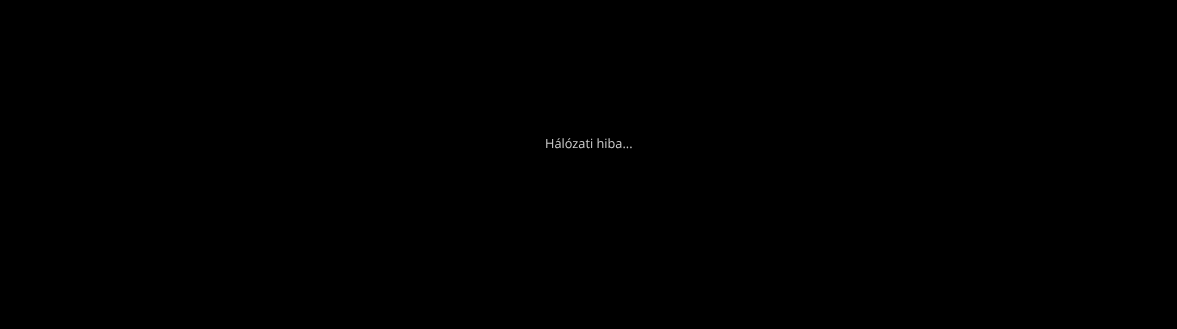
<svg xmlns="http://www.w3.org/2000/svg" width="1177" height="329">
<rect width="100%" height="100%" fill="#000"/>
<text x="545" y="148" style="font-family:Open Sans;font-size:12.75px;fill:#ccc">Hálózati hiba...</text>
</svg>
